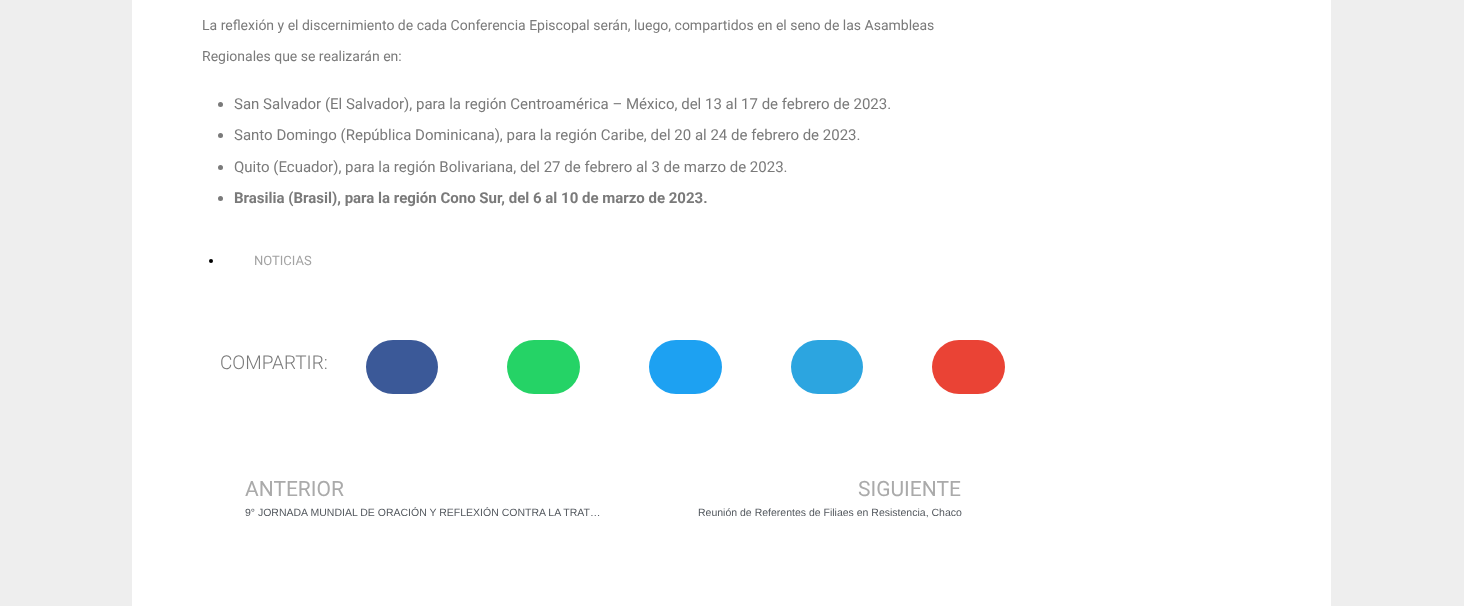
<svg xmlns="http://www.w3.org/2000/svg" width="1464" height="606">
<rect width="100%" height="100%" fill="#eee"/>
<rect x="132" width="1199" height="606" fill="#fff"/>
<text x="202" y="30" style="font-family:Roboto;font-size:14px;fill:#7a7a7a">La reflexión y el discernimiento de cada Conferencia Episcopal serán, luego, compartidos en el seno de las Asambleas</text>
<text x="202" y="61" style="font-family:Roboto;font-size:14px;fill:#7a7a7a">Regionales que se realizarán en:</text>
<circle cx="220.5" cy="104.5" r="2.5" fill="#7a7a7a"/>
<text x="234" y="109" style="font-family:Roboto;font-size:15px;fill:#7a7a7a">San Salvador (El Salvador), para la región Centroamérica – México, del 13 al 17 de febrero de 2023.</text>
<circle cx="220.5" cy="135.5" r="2.5" fill="#7a7a7a"/>
<text x="234" y="140" style="font-family:Roboto;font-size:15px;fill:#7a7a7a">Santo Domingo (República Dominicana), para la región Caribe, del 20 al 24 de febrero de 2023.</text>
<circle cx="220.5" cy="167.5" r="2.5" fill="#7a7a7a"/>
<text x="234" y="172" style="font-family:Roboto;font-size:15px;fill:#7a7a7a">Quito (Ecuador), para la región Bolivariana, del 27 de febrero al 3 de marzo de 2023.</text>
<circle cx="220.5" cy="198.5" r="2.5" fill="#7a7a7a"/>
<text x="234" y="203" style="font-family:Roboto;font-size:15px;font-weight:bold;fill:#7a7a7a">Brasilia (Brasil), para la región Cono Sur, del 6 al 10 de marzo de 2023.</text>
<circle cx="211" cy="261" r="2" fill="#000"/>
<text x="254" y="265" style="font-family:Roboto;font-size:13px;fill:#a3a3a3">NOTICIAS</text>
<text x="220" y="369" style="font-family:Roboto;font-size:19px;font-weight:300;fill:#7a7a7a">COMPARTIR:</text>
<rect x="366" y="340" width="72" height="54" rx="27" fill="#3b5998"/>
<rect x="507" y="340" width="73" height="54" rx="27" fill="#25d366"/>
<rect x="649" y="340" width="73" height="54" rx="27" fill="#1da1f2"/>
<rect x="791" y="340" width="72" height="54" rx="27" fill="#2ca5e0"/>
<rect x="932" y="340" width="73" height="54" rx="27" fill="#ea4335"/>
<text x="245" y="496" style="font-family:Roboto;font-size:21px;fill:#aaa">ANTERIOR</text>
<text x="245" y="516" style="font-family:Liberation Sans;font-size:10.5px;fill:#54595f">9° JORNADA MUNDIAL DE ORACIÓN Y REFLEXIÓN CONTRA LA TRAT…</text>
<text x="858" y="496" style="font-family:Roboto;font-size:21px;fill:#aaa">SIGUIENTE</text>
<text x="698" y="516" style="font-family:Liberation Sans;font-size:10.5px;fill:#54595f">Reunión de Referentes de Filiaes en Resistencia, Chaco</text>
</svg>
